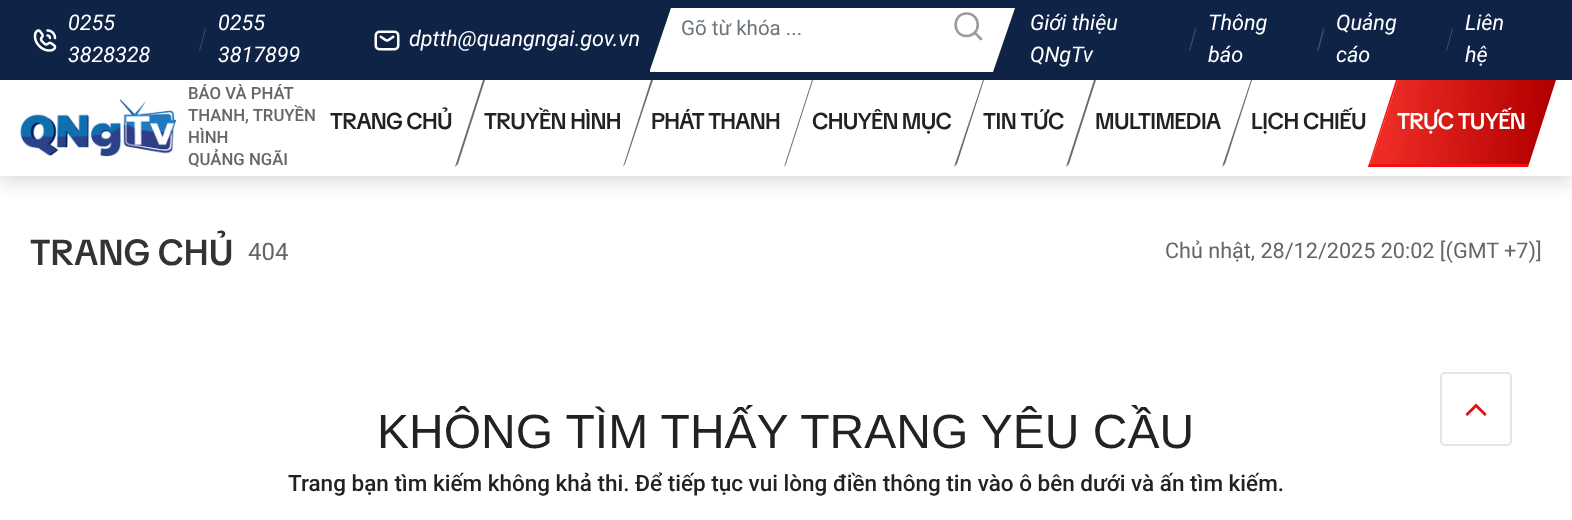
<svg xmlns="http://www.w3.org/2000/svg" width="1572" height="520">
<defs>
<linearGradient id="g1" gradientUnits="userSpaceOnUse" x1="1384" y1="119" x2="1543" y2="125"><stop offset="0.01" stop-color="#ed2c25"/><stop offset="1" stop-color="#b40001"/></linearGradient>
</defs>
<rect width="100%" height="100%" fill="#fff"/>
<rect width="1572" height="80" fill="#0e2346"/>
<image x="33" y="29" width="24" height="23" href="media/1.png"/>
<text x="68" y="30" style="font-family:Roboto;font-size:21.6px;font-style:italic;fill:#fff">0255</text>
<rect y="86" width="1572" height="96" fill="#170c2b29" filter="blur(9px)"/>
<text x="68" y="62" style="font-family:Roboto;font-size:21.6px;font-style:italic;fill:#fff">3828328</text>
<path d="M205 28.5h1l-6 22.5h-1z" fill="#3e4f6b"/>
<text x="218" y="30" style="font-family:Roboto;font-size:21.6px;font-style:italic;fill:#fff">0255</text>
<text x="218" y="62" style="font-family:Roboto;font-size:21.6px;font-style:italic;fill:#fff">3817899</text>
<image x="374" y="30" width="26" height="21" href="media/2.png"/>
<text x="409" y="46" style="font-family:Roboto;font-size:21.6px;font-style:italic;fill:#fff">dptth@quangngai.gov.vn</text>
<path d="M650 70l21-62h344l-22 64h-343z" fill="#fff"/>
<path d="M993 72h-343v-2l2-6v6h341zm22-64h-344v2h343z" fill="#ffffff33" fill-rule="evenodd"/>
<path d="M659 45l12-36h259c3 0 6 3 6 6v24c0 3-3 6-6 6z" fill="#fff"/>
<text x="681" y="35" style="font-family:Roboto;font-size:20.5px;fill:#6c757d">Gõ từ khóa ...</text>
<path d="M966.5 36c15 0 15-22.5 0-22.5c-14.5 0-14.5 22.5 0 22.5zm8-3.5l6.5 6.5" fill="none" stroke="#9b9b9b" stroke-width="2.6" stroke-linecap="round" stroke-linejoin="round"/>
<text x="1030" y="30" style="font-family:Roboto;font-size:21.6px;font-style:italic;fill:#fff">Giới thiệu</text>
<text x="1030" y="62" style="font-family:Roboto;font-size:21.6px;font-style:italic;fill:#fff">QNgTv</text>
<path d="M1195 28.5h1.5l-6.5 22.5h-1z" fill="#3e4f6b"/>
<text x="1208" y="30" style="font-family:Roboto;font-size:21.6px;font-style:italic;fill:#fff">Thông</text>
<text x="1208" y="62" style="font-family:Roboto;font-size:21.6px;font-style:italic;fill:#fff">báo</text>
<path d="M1323 28.5h1.5l-6 22.5h-1.5z" fill="#3e4f6b"/>
<text x="1336" y="30" style="font-family:Roboto;font-size:21.6px;font-style:italic;fill:#fff">Quảng</text>
<text x="1336" y="62" style="font-family:Roboto;font-size:21.6px;font-style:italic;fill:#fff">cáo</text>
<path d="M1452 28.5h1l-6 22.5h-1z" fill="#3e4f6b"/>
<text x="1465" y="30" style="font-family:Roboto;font-size:21.6px;font-style:italic;fill:#fff">Liên</text>
<text x="1465" y="62" style="font-family:Roboto;font-size:21.6px;font-style:italic;fill:#fff">hệ</text>
<rect y="80" width="1572" height="96" fill="#fff"/>
<image x="20" y="99" width="157" height="58" href="media/3.png"/>
<text x="188" y="99" style="font-family:Roboto;font-size:16.75px;font-weight:500;fill:#666">BÁO VÀ PHÁT</text>
<text x="188" y="121" style="font-family:Roboto;font-size:16.75px;font-weight:500;fill:#666">THANH, TRUYỀN</text>
<text x="188" y="143" style="font-family:Roboto;font-size:16.75px;font-weight:500;fill:#666">HÌNH</text>
<text x="188" y="165" style="font-family:Roboto;font-size:16.75px;font-weight:500;fill:#666">QUẢNG NGÃI</text>
<text x="330" y="129" style="font-family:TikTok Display;font-size:22.75px;font-weight:500;letter-spacing:-0.75px;fill:#222">TRANG CHỦ</text>
<path d="M455 167l28-87h2l-27 84z" fill="#706779"/>
<text x="484" y="129" style="font-family:TikTok Display;font-size:22.75px;font-weight:500;letter-spacing:-0.6px;fill:#222">TRUYỀN HÌNH</text>
<path d="M623 167l28-87h2l-28 84z" fill="#706779"/>
<text x="651" y="129" style="font-family:TikTok Display;font-size:22.75px;font-weight:500;letter-spacing:-0.75px;fill:#222">PHÁT THANH</text>
<path d="M784 167l28-87h1l-27 84z" fill="#706779"/>
<text x="812" y="129" style="font-family:TikTok Display;font-size:22.75px;font-weight:500;letter-spacing:-0.75px;fill:#222">CHUYÊN MỤC</text>
<path d="M954 167l29-87h1l-27 84z" fill="#706779"/>
<text x="983" y="129" style="font-family:TikTok Display;font-size:22.75px;font-weight:500;letter-spacing:-0.5px;fill:#222">TIN TỨC</text>
<path d="M1066 167l28-87h2l-27 84z" fill="#706779"/>
<text x="1095" y="129" style="font-family:TikTok Display;font-size:22.75px;font-weight:500;letter-spacing:-0.6px;fill:#222">MULTIMEDIA</text>
<path d="M1222 167l29-87h1l-27 84z" fill="#706779"/>
<text x="1251" y="129" style="font-family:TikTok Display;font-size:22.75px;font-weight:500;letter-spacing:-0.5px;fill:#222">LỊCH CHIẾU</text>
<path d="M1369 164h160l-1 3h-160z" fill="#f80e10"/>
<path d="M1396 80h2l-29 87h-1z" fill="#f80e10"/>
<path d="M1398 80h158l-27 84h-159z" fill="url(#g1)"/>
<text x="1397" y="129" style="font-family:TikTok Display;font-size:22.75px;font-weight:500;letter-spacing:-0.75px;fill:#fff">TRỰC TUYẾN</text>
<text x="30" y="265" style="font-family:TikTok Display;font-size:36px;font-weight:500;fill:#333">TRANG CHỦ</text>
<text x="248" y="260" style="font-family:Roboto;font-size:24px;fill:#666">404</text>
<text x="1165" y="258" style="font-family:Roboto;font-size:21.6px;fill:#666">Chủ nhật, 28/12/2025 20:02 [(GMT +7)]</text>
<text x="377" y="448" style="font-family:Liberation Sans;font-size:48px;fill:#222">KHÔNG TÌM THẤY TRANG YÊU CẦU</text>
<text x="288" y="491" style="font-family:Roboto;font-size:22.5px;font-weight:500;fill:#222">Trang bạn tìm kiếm không khả thi. Để tiếp tục vui lòng điền thông tin vào ô bên dưới và ấn tìm kiếm.</text>
<rect x="1441" y="373" width="70" height="72" rx="4" fill="none" stroke="#e5e5e5" stroke-width="2"/>
<image x="1465" y="403" width="22" height="13" href="media/4.png"/>
</svg>
